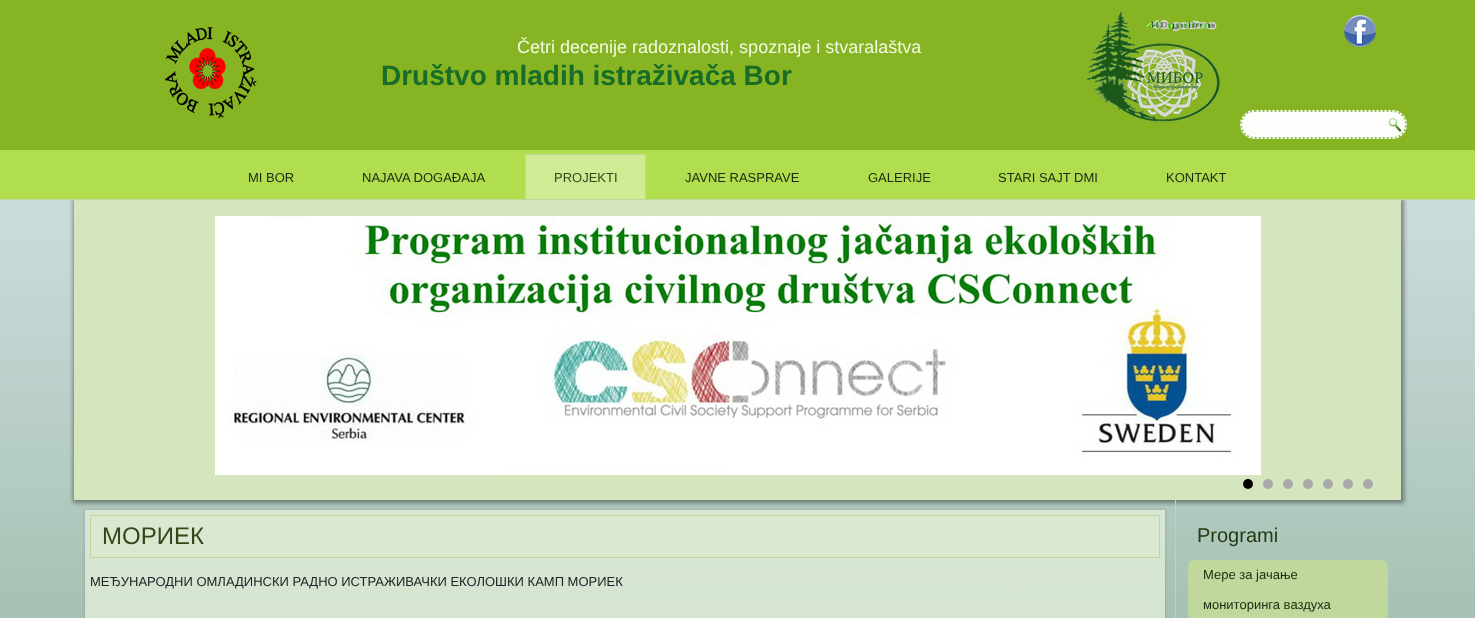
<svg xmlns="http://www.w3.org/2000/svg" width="1475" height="618">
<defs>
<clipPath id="clip1"><path d="M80 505h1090v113h-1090zm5 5h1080v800h-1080z" clip-rule="evenodd"/></clipPath>
</defs>
<rect width="100%" height="100%" fill="#fff"/>
<image x="0" y="200" width="1475" height="418" href="media/1.png"/>
<rect width="1475" height="150" fill="#87b423"/>
<text x="517" y="53" style="font-family:Liberation Sans;font-size:18px;fill:#f2f9e1">Četri decenije radoznalosti, spoznaje i stvaralaštva</text>
<image x="1344" y="15" width="32" height="32" href="media/2.png"/>
<image x="165" y="27" width="92" height="92" href="media/3.png"/>
<text x="381" y="85" style="font-family:Liberation Sans;font-size:28px;font-weight:bold;fill:#176d27">Društvo mladih istraživača Bor</text>
<image x="1086" y="11" width="134" height="111" href="media/4.png"/>
<rect x="1240" y="110" width="167" height="29" rx="14.5" fill="#fdfefb"/>
<path d="M1254.5 111h138c7.5 0 13.5 6 13.5 13.5c0 7.5-6 13.5-13.5 13.5h-138c-7.5 0-13.5-6-13.5-13.5c0-7.5 6-13.5 13.5-13.5z" fill="none" stroke="#96bf5a" stroke-width="2" stroke-dasharray="2 2"/>
<image x="1388" y="118" width="14" height="14" href="media/5.png"/>
<rect x="73" y="199" width="1331" height="304" fill="#00000066" filter="blur(2px)"/>
<rect y="150" width="1475" height="49" fill="#b1de4f"/>
<rect y="199" width="1475" height="1" fill="#c0d89c"/>
<text x="248" y="182" style="font-family:Liberation Sans;font-size:13px;fill:#1b2b0d">MI BOR</text>
<text x="362" y="182" style="font-family:Liberation Sans;font-size:13px;fill:#1b2b0d">NAJAVA DOGAĐAJA</text>
<rect x="526" y="155" width="119" height="44" fill="#cfeb94"/>
<rect x="525" y="154" width="121" height="1" fill="#c0d89c"/>
<rect x="645" y="154" width="1" height="45" fill="#c0d89c"/>
<rect x="525" y="154" width="1" height="45" fill="#c0d89c"/>
<text x="554" y="182" style="font-family:Liberation Sans;font-size:13px;fill:#35461b">PROJEKTI</text>
<text x="685" y="182" style="font-family:Liberation Sans;font-size:13px;fill:#1b2b0d">JAVNE RASPRAVE</text>
<text x="868" y="182" style="font-family:Liberation Sans;font-size:13px;fill:#1b2b0d">GALERIJE</text>
<text x="998" y="182" style="font-family:Liberation Sans;font-size:13px;fill:#1b2b0d">STARI SAJT DMI</text>
<text x="1166" y="182" style="font-family:Liberation Sans;font-size:13px;fill:#1b2b0d">KONTAKT</text>
<rect x="74" y="200" width="1327" height="300" fill="#d5e5be"/>
<image x="215" y="216" width="1046" height="259" href="media/6.png"/>
<circle cx="1248" cy="484" r="5" fill="#000"/>
<circle cx="1268" cy="484" r="5" fill="#a9a9a9"/>
<circle cx="1288" cy="484" r="5" fill="#a9a9a9"/>
<circle cx="1308" cy="484" r="5" fill="#a9a9a9"/>
<circle cx="1328" cy="484" r="5" fill="#a9a9a9"/>
<circle cx="1348" cy="484" r="5" fill="#a9a9a9"/>
<circle cx="1368" cy="484" r="5" fill="#a9a9a9"/>
<g clip-path="url(#clip1)">
<rect x="84" y="509" width="1082" height="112" fill="#0000001a" filter="blur(1px)"/>
</g>
<rect x="85" y="510" width="1080" height="108" fill="#eaf2deb3"/>
<rect x="90.5" y="515.5" width="1069" height="42" fill="#dbe8d0" stroke="#c0d89c"/>
<text x="102" y="544" style="font-family:Liberation Sans;font-size:24px;fill:#35461b">МОРИЕК</text>
<text x="90" y="586" style="font-family:Liberation Sans;font-size:13px;fill:#212529">МЕЂУНАРОДНИ ОМЛАДИНСКИ РАДНО ИСТРАЖИВАЧКИ ЕКОЛОШКИ КАМП МОРИЕК</text>
<rect x="1175" y="500" width="1" height="118" fill="#c0d89c"/>
<text x="1197" y="542" style="font-family:Liberation Sans;font-size:20px;fill:#253a12">Programi</text>
<rect x="1188" y="560" width="200" height="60" rx="6" fill="#c0d89c"/>
<text x="1203" y="579" style="font-family:Liberation Sans;font-size:13px;fill:#1b2b0d">Мере за јачање</text>
<text x="1203" y="609" style="font-family:Liberation Sans;font-size:13px;fill:#1b2b0d">мониторинга ваздуха</text>
</svg>
